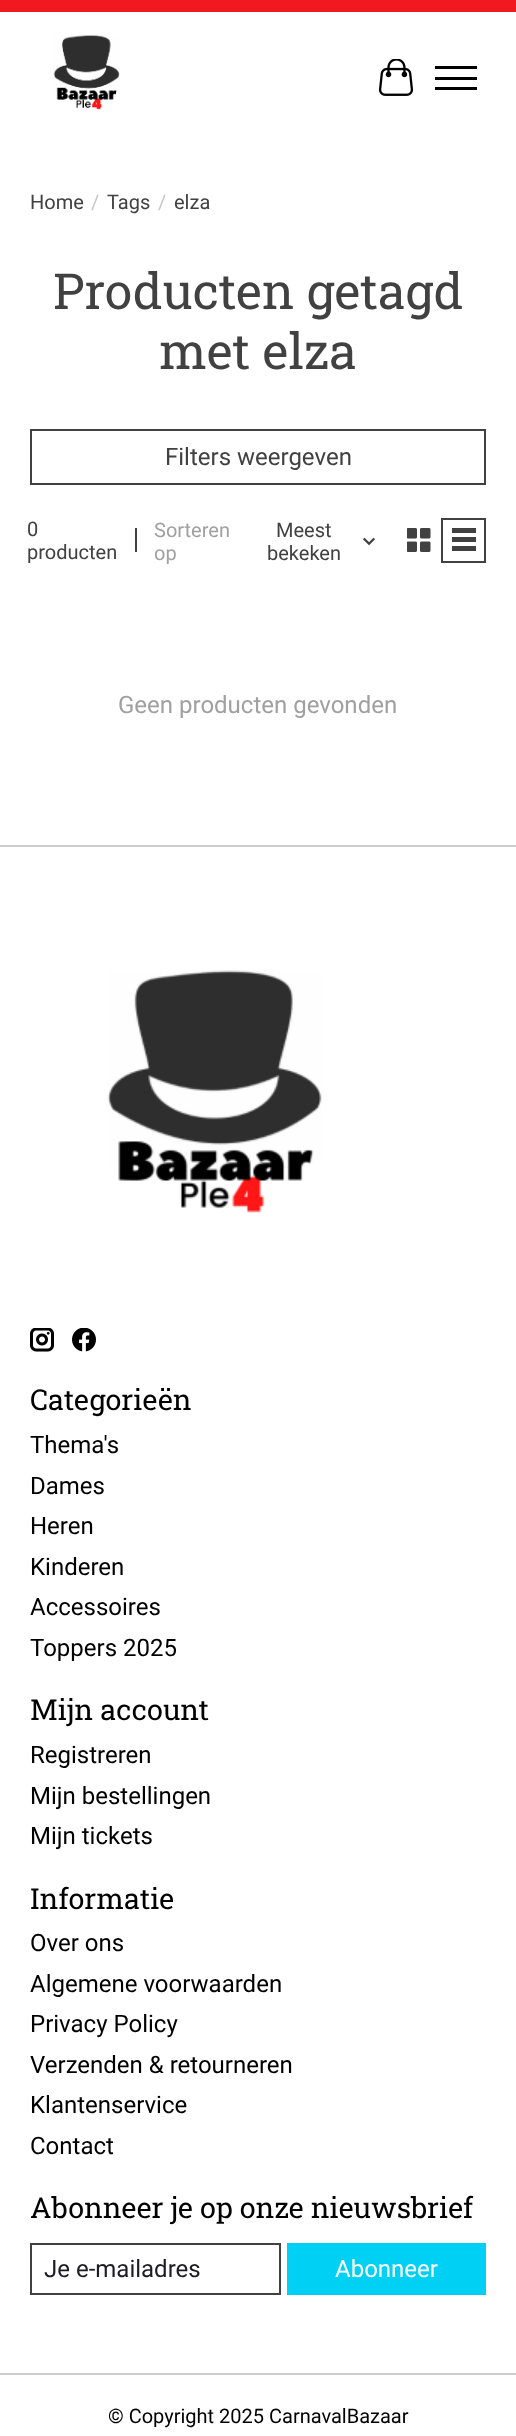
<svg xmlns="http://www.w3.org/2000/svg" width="516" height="2436">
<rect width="100%" height="100%" fill="#fff"/>
<rect width="516" height="12" fill="#f21820"/>
<image x="53" y="34" width="67" height="76" href="media/1.png"/>
<image x="378" y="59" width="35" height="37" href="media/2.png"/>
<rect x="435" y="77" width="42" height="3" fill="#000"/>
<rect x="435" y="66" width="42" height="3" fill="#000"/>
<rect x="435" y="87" width="42" height="3" fill="#000"/>
<text x="30" y="209" style="font-family:Roboto;font-size:20px;fill:#414141">Home</text>
<text x="91" y="209" style="font-family:Roboto;font-size:20px;fill:#c6c6c6">/</text>
<text x="107" y="209" style="font-family:Roboto;font-size:20px;fill:#414141">Tags</text>
<text x="158" y="209" style="font-family:Roboto;font-size:20px;fill:#c6c6c6">/</text>
<text x="174" y="209" style="font-family:Roboto;font-size:20px;fill:#414141">elza</text>
<text x="53" y="309" style="font-family:Roboto Slab;font-size:49.75px;fill:#414141">Producten getagd</text>
<text x="159" y="369" style="font-family:Roboto Slab;font-size:49.75px;fill:#414141">met elza</text>
<rect x="31" y="430" width="454" height="54" fill="none" stroke="#414141" stroke-width="2"/>
<text x="165" y="465" style="font-family:Roboto;font-size:24px;fill:#414141">Filters weergeven</text>
<text x="27" y="536" style="font-family:Roboto;font-size:20px;fill:#414141">0</text>
<text x="27" y="559" style="font-family:Roboto;font-size:20px;fill:#414141">producten</text>
<rect x="135" y="528" width="2" height="24" fill="#414141"/>
<text x="154" y="537" style="font-family:Roboto;font-size:20px;fill:#a0a0a0">Sorteren</text>
<text x="154" y="560" style="font-family:Roboto;font-size:20px;fill:#a0a0a0">op</text>
<text x="276" y="537" style="font-family:Roboto;font-size:20px;fill:#414141">Meest</text>
<text x="267" y="560" style="font-family:Roboto;font-size:20px;fill:#414141">bekeken</text>
<image x="363" y="537" width="12" height="9" href="media/3.png"/>
<image x="407" y="528" width="24" height="24" href="media/4.png"/>
<rect x="442" y="519" width="43" height="43" fill="none" stroke="#414141" stroke-width="2"/>
<rect x="452" y="528" width="24" height="5" fill="#414141"/>
<rect x="452" y="537" width="24" height="5" fill="#414141"/>
<rect x="452" y="546" width="24" height="5" fill="#414141"/>
<text x="118" y="713" style="font-family:Roboto;font-size:24px;fill:#a0a0a0">Geen producten gevonden</text>
<rect y="845" width="516" height="2" fill="#ccc"/>
<image x="107" y="970" width="215" height="243" href="media/5.png"/>
<image x="30" y="1328" width="24" height="24" href="media/6.png"/>
<image x="72" y="1328" width="24" height="24" href="media/7.png"/>
<text x="30" y="1410" style="font-family:Roboto Slab;font-size:28.75px;fill:#000">Categorieën</text>
<text x="30" y="1453" style="font-family:Roboto;font-size:24px;fill:#000">Thema's</text>
<text x="30" y="1494" style="font-family:Roboto;font-size:24px;fill:#000">Dames</text>
<text x="30" y="1534" style="font-family:Roboto;font-size:24px;fill:#000">Heren</text>
<text x="30" y="1575" style="font-family:Roboto;font-size:24px;fill:#000">Kinderen</text>
<text x="30" y="1615" style="font-family:Roboto;font-size:24px;fill:#000">Accessoires</text>
<text x="30" y="1656" style="font-family:Roboto;font-size:24px;fill:#000">Toppers 2025</text>
<text x="30" y="1720" style="font-family:Roboto Slab;font-size:28.75px;fill:#000">Mijn account</text>
<text x="30" y="1763" style="font-family:Roboto;font-size:24px;fill:#000">Registreren</text>
<text x="30" y="1804" style="font-family:Roboto;font-size:24px;fill:#000">Mijn bestellingen</text>
<text x="30" y="1844" style="font-family:Roboto;font-size:24px;fill:#000">Mijn tickets</text>
<text x="30" y="1909" style="font-family:Roboto Slab;font-size:28.75px;fill:#000">Informatie</text>
<text x="30" y="1951" style="font-family:Roboto;font-size:24px;fill:#000">Over ons</text>
<text x="30" y="1992" style="font-family:Roboto;font-size:24px;fill:#000">Algemene voorwaarden</text>
<text x="30" y="2032" style="font-family:Roboto;font-size:24px;fill:#000">Privacy Policy</text>
<text x="30" y="2073" style="font-family:Roboto;font-size:24px;fill:#000">Verzenden &amp; retourneren</text>
<text x="30" y="2113" style="font-family:Roboto;font-size:24px;fill:#000">Klantenservice</text>
<text x="30" y="2154" style="font-family:Roboto;font-size:24px;fill:#000">Contact</text>
<text x="30" y="2218" style="font-family:Roboto Slab;font-size:28.75px;fill:#000">Abonneer je op onze nieuwsbrief</text>
<rect x="31" y="2244" width="249" height="50" fill="none" stroke="#414141" stroke-width="2"/>
<text x="44" y="2277" style="font-family:Roboto;font-size:24px;fill:#1c1c21">Je e-mailadres</text>
<rect x="287" y="2243" width="199" height="52" fill="#01d0f5"/>
<text x="335" y="2277" style="font-family:Roboto;font-size:24px;fill:#fff">Abonneer</text>
<rect y="2373" width="516" height="2" fill="#ccc"/>
<text x="108" y="2423" style="font-family:Roboto;font-size:20px;fill:#000">© Copyright 2025 CarnavalBazaar</text>
</svg>
